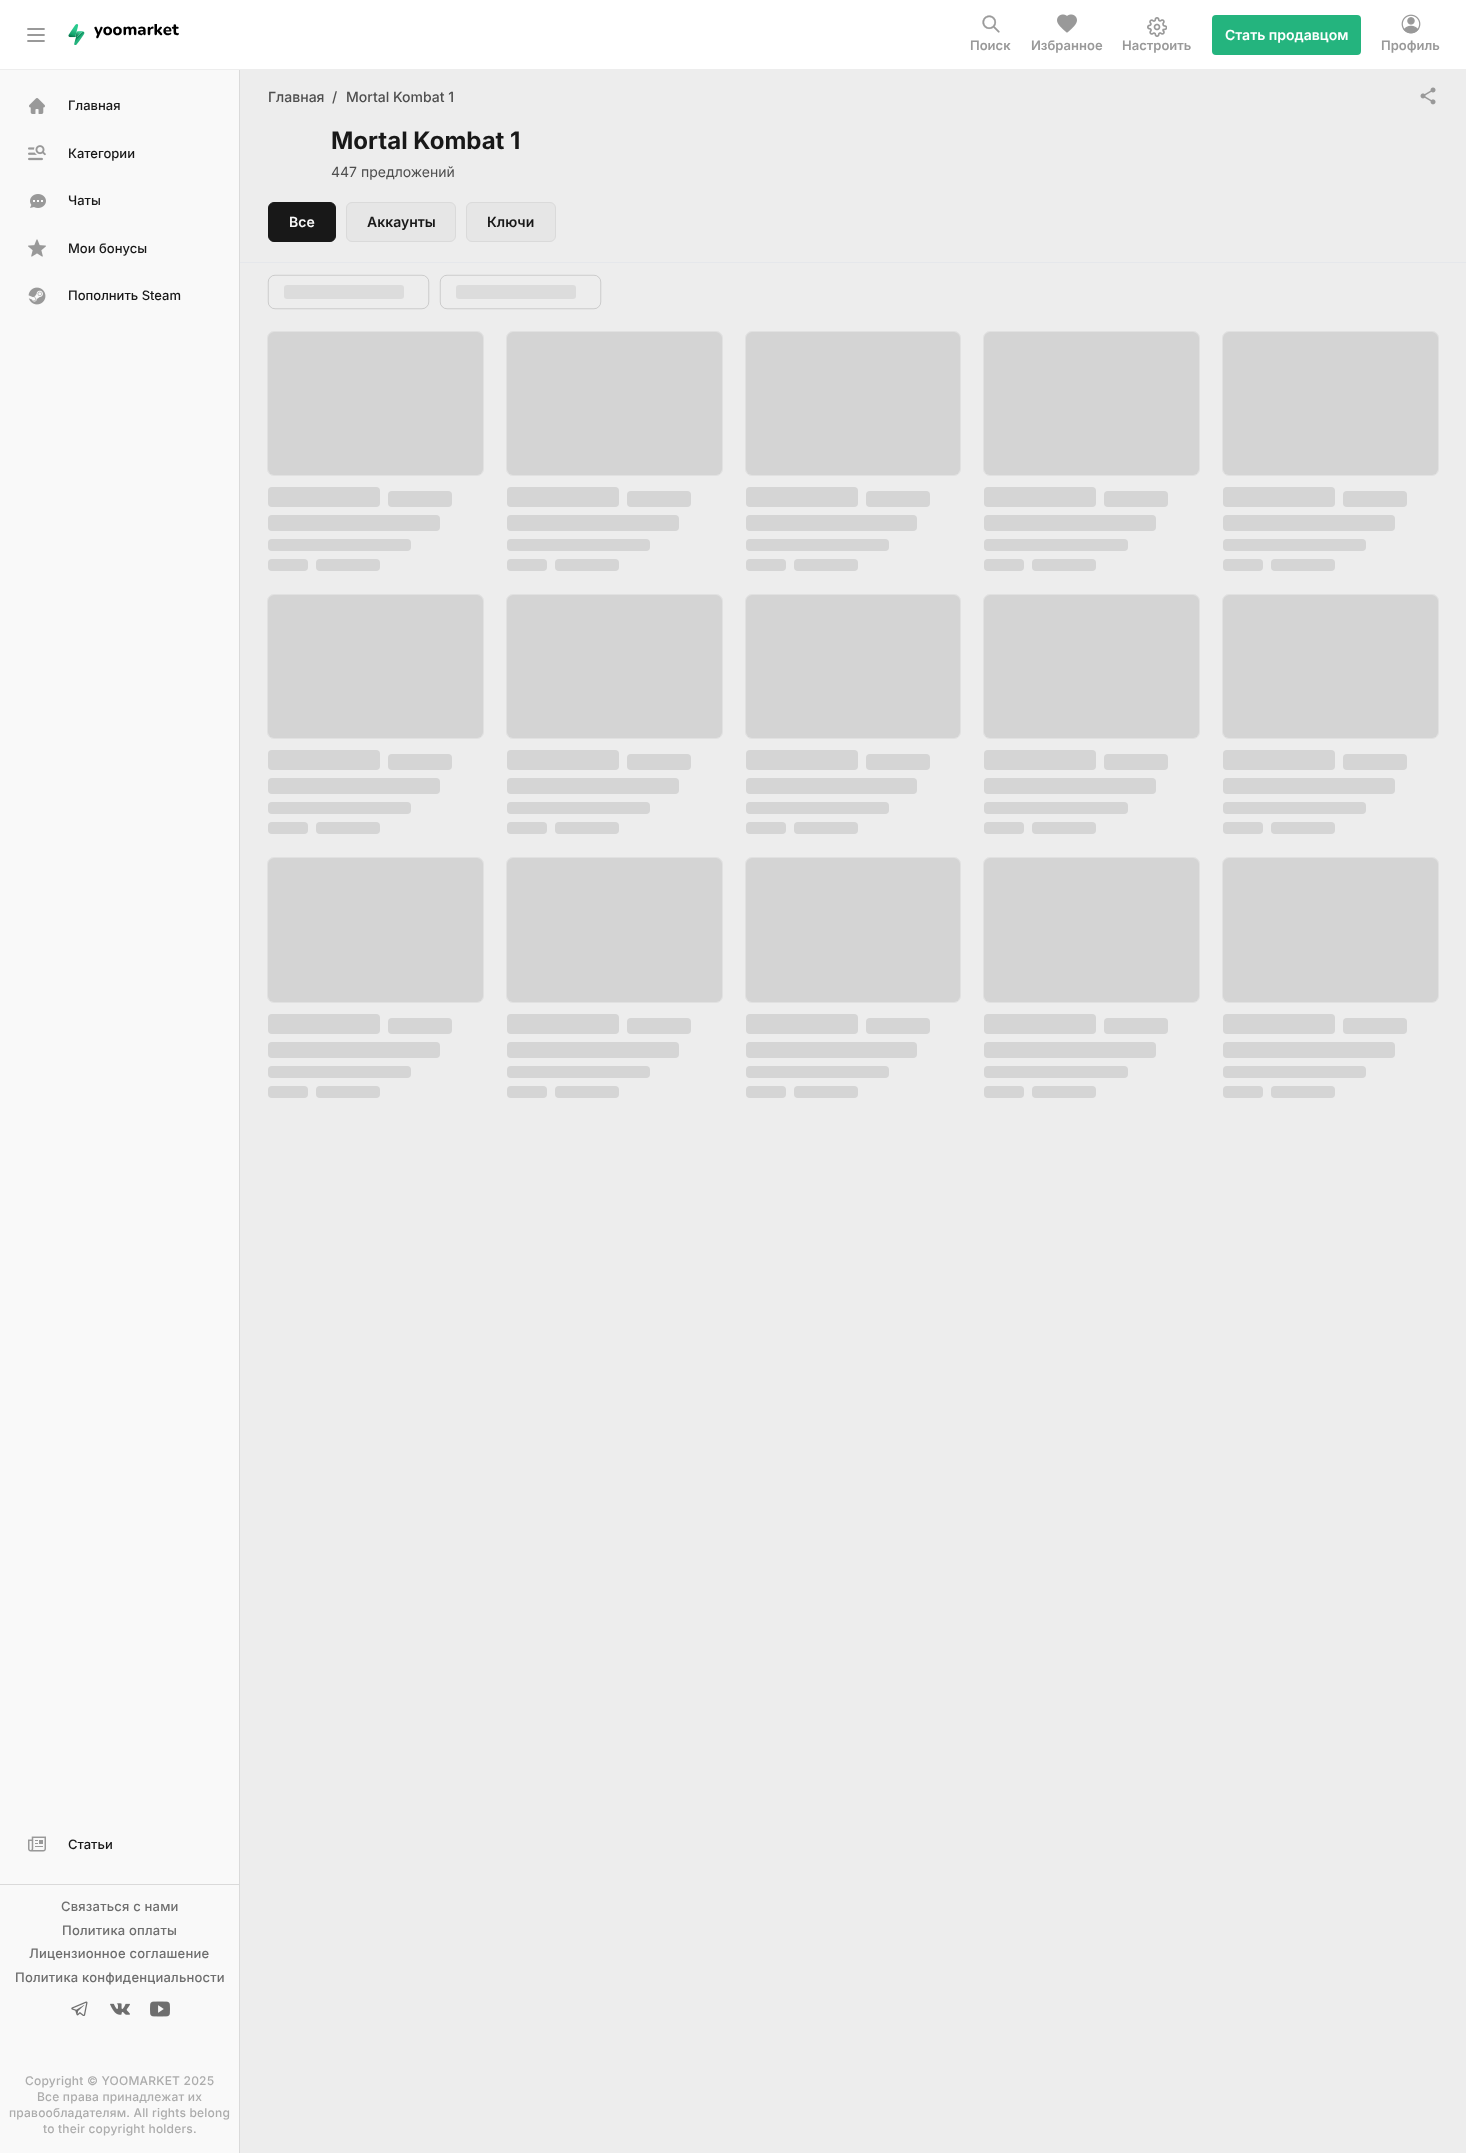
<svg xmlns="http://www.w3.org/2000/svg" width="1466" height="2153">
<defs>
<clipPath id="clip1"><rect x="64" y="24" width="120" height="21"/></clipPath>
</defs>
<rect width="100%" height="100%" fill="#ededed"/>
<rect width="1466" height="69" fill="#fff"/>
<path d="M28 29h16m-16 6h16m-16 6h16" fill="none" stroke="#999" stroke-width="1.8" stroke-linecap="round" stroke-linejoin="round"/>
<image x="68" y="24" width="17" height="21" href="media/1.png"/>
<g clip-path="url(#clip1)">
<text x="94" y="35" style="font-family:Nunito;font-size:16.75px;font-weight:800;fill:#000">yoomarket</text>
</g>
<rect x="1212" y="15" width="149" height="40" rx="4" fill="#24b47e"/>
<text x="1225" y="40" style="font-family:Inter;font-size:14px;font-weight:600;fill:#fff">Стать продавцом</text>
<image x="982" y="15" width="18" height="18" href="media/2.png"/>
<text x="970" y="50" style="font-family:Inter;font-size:13px;font-weight:600;fill:#999">Поиск</text>
<image x="1057" y="14" width="20" height="19" href="media/3.png"/>
<text x="1031" y="50" style="font-family:Inter;font-size:13px;font-weight:600;fill:#999">Избранное</text>
<image x="1147" y="17" width="20" height="20" href="media/4.png"/>
<text x="1122" y="50" style="font-family:Inter;font-size:13px;font-weight:600;fill:#999">Настроить</text>
<image x="1401" y="14" width="20" height="20" href="media/5.png"/>
<text x="1381" y="50" style="font-family:Inter;font-size:13px;font-weight:600;fill:#999">Профиль</text>
<rect y="70" width="239" height="2083" fill="#f9f9f9"/>
<rect x="239" y="70" width="1" height="2083" fill="#dadada"/>
<image x="29" y="98" width="16" height="16" href="media/6.png"/>
<text x="68" y="110" style="font-family:Inter;font-size:13px;font-weight:500;fill:#181818">Главная</text>
<image x="28" y="145" width="18" height="16" href="media/7.png"/>
<text x="68" y="158" style="font-family:Inter;font-size:13px;font-weight:500;fill:#181818">Категории</text>
<image x="30" y="194" width="16" height="14" href="media/8.png"/>
<text x="68" y="205" style="font-family:Inter;font-size:13px;font-weight:500;fill:#181818">Чаты</text>
<image x="28" y="239" width="18" height="18" href="media/9.png"/>
<text x="68" y="253" style="font-family:Inter;font-size:13px;font-weight:500;fill:#181818">Мои бонусы</text>
<image x="28" y="287" width="18" height="18" href="media/10.png"/>
<text x="68" y="300" style="font-family:Inter;font-size:13px;font-weight:500;fill:#181818">Пополнить Steam</text>
<image x="28" y="1836" width="18" height="16" href="media/11.png"/>
<text x="68" y="1849" style="font-family:Inter;font-size:13px;font-weight:500;fill:#181818">Статьи</text>
<rect y="1884" width="239" height="1" fill="#dadada"/>
<text x="61" y="1911" style="font-family:Inter;font-size:13px;font-weight:500;letter-spacing:0.2px;fill:#6e6e6e">Связаться с нами</text>
<text x="62" y="1935" style="font-family:Inter;font-size:13px;font-weight:500;letter-spacing:0.2px;fill:#6e6e6e">Политика оплаты</text>
<text x="29" y="1958" style="font-family:Inter;font-size:13px;font-weight:500;letter-spacing:0.2px;fill:#6e6e6e">Лицензионное соглашение</text>
<text x="15" y="1982" style="font-family:Inter;font-size:13px;font-weight:500;letter-spacing:0.2px;fill:#6e6e6e">Политика конфиденциальности</text>
<image x="71" y="2001" width="17" height="15" href="media/12.png"/>
<image x="110" y="2003" width="20" height="12" href="media/13.png"/>
<image x="150" y="2001" width="20" height="16" href="media/14.png"/>
<text x="25" y="2085" style="font-family:Inter;font-size:12px;font-weight:500;letter-spacing:0.2px;fill:#acacac">Copyright © YOOMARKET 2025</text>
<text x="37" y="2101" style="font-family:Inter;font-size:12px;font-weight:500;letter-spacing:0.2px;fill:#acacac">Все права принадлежат их</text>
<text x="9" y="2117" style="font-family:Inter;font-size:12px;font-weight:500;letter-spacing:0.2px;fill:#acacac">правообладателям. All rights belong</text>
<text x="43" y="2133" style="font-family:Inter;font-size:12px;font-weight:500;letter-spacing:0.2px;fill:#acacac">to their copyright holders.</text>
<text x="268" y="102" style="font-family:Inter;font-size:14px;font-weight:500;fill:#4e4e4e">Главная</text>
<text x="332" y="102" style="font-family:Inter;font-size:14px;font-weight:500;fill:#4e4e4e">/</text>
<text x="346" y="102" style="font-family:Inter;font-size:14px;font-weight:500;fill:#4e4e4e">Mortal Kombat 1</text>
<image x="1420" y="87" width="16" height="18" href="media/15.png"/>
<text x="331" y="149" style="font-family:Inter;font-size:24px;font-weight:bold;fill:#181818">Mortal Kombat 1</text>
<text x="331" y="177" style="font-family:Inter;font-size:14px;fill:#4e4e4e">447 предложений</text>
<rect x="240" y="262" width="1226" height="1" fill="#e5e7eb"/>
<rect x="268.5" y="202.5" width="67" height="39" rx="5.5" fill="#181818" stroke="#181818"/>
<text x="289" y="227" style="font-family:Inter;font-size:14px;font-weight:600;fill:#f9f9f9">Все</text>
<rect x="346.5" y="202.5" width="109" height="39" rx="5.5" fill="#e6e6e6" stroke="#dadada"/>
<text x="367" y="227" style="font-family:Inter;font-size:14px;font-weight:600;fill:#181818">Аккаунты</text>
<rect x="466.5" y="202.5" width="89" height="39" rx="5.5" fill="#e6e6e6" stroke="#dadada"/>
<text x="487" y="227" style="font-family:Inter;font-size:14px;font-weight:600;fill:#181818">Ключи</text>
<rect x="268.25" y="275.25" width="160.5" height="33.5" rx="6.75" fill="none" stroke="#a8a8a8" stroke-width="0.5"/>
<rect x="284" y="285" width="120" height="14" rx="3" fill="#dcdcdc"/>
<rect x="440.25" y="275.25" width="160.5" height="33.5" rx="6.75" fill="none" stroke="#a8a8a8" stroke-width="0.5"/>
<rect x="456" y="285" width="120" height="14" rx="3" fill="#dcdcdc"/>
<rect x="267.5" y="331.5" width="216" height="144" rx="6.5" fill="none" stroke="#e1e1e1"/>
<rect x="268" y="332" width="215" height="143" rx="6" fill="#0000001a"/>
<rect x="268" y="487" width="112" height="20" rx="4" fill="#d5d5d5"/>
<rect x="388" y="491" width="64" height="16" rx="4" fill="#d5d5d5"/>
<rect x="268" y="515" width="172" height="16" rx="4" fill="#d5d5d5"/>
<rect x="268" y="539" width="143" height="12" rx="4" fill="#d5d5d5"/>
<rect x="268" y="559" width="40" height="12" rx="4" fill="#d5d5d5"/>
<rect x="316" y="559" width="64" height="12" rx="4" fill="#d5d5d5"/>
<rect x="506.5" y="331.5" width="216" height="144" rx="6.5" fill="none" stroke="#e1e1e1"/>
<rect x="507" y="332" width="215" height="143" rx="6" fill="#0000001a"/>
<rect x="507" y="487" width="112" height="20" rx="4" fill="#d5d5d5"/>
<rect x="627" y="491" width="64" height="16" rx="4" fill="#d5d5d5"/>
<rect x="507" y="515" width="172" height="16" rx="4" fill="#d5d5d5"/>
<rect x="507" y="539" width="143" height="12" rx="4" fill="#d5d5d5"/>
<rect x="507" y="559" width="40" height="12" rx="4" fill="#d5d5d5"/>
<rect x="555" y="559" width="64" height="12" rx="4" fill="#d5d5d5"/>
<rect x="745.5" y="331.5" width="215" height="144" rx="6.5" fill="none" stroke="#e1e1e1"/>
<rect x="746" y="332" width="214" height="143" rx="6" fill="#0000001a"/>
<rect x="746" y="487" width="112" height="20" rx="4" fill="#d5d5d5"/>
<rect x="866" y="491" width="64" height="16" rx="4" fill="#d5d5d5"/>
<rect x="746" y="515" width="171" height="16" rx="4" fill="#d5d5d5"/>
<rect x="746" y="539" width="143" height="12" rx="4" fill="#d5d5d5"/>
<rect x="746" y="559" width="40" height="12" rx="4" fill="#d5d5d5"/>
<rect x="794" y="559" width="64" height="12" rx="4" fill="#d5d5d5"/>
<rect x="983.5" y="331.5" width="216" height="144" rx="6.5" fill="none" stroke="#e1e1e1"/>
<rect x="984" y="332" width="215" height="143" rx="6" fill="#0000001a"/>
<rect x="984" y="487" width="112" height="20" rx="4" fill="#d5d5d5"/>
<rect x="1104" y="491" width="64" height="16" rx="4" fill="#d5d5d5"/>
<rect x="984" y="515" width="172" height="16" rx="4" fill="#d5d5d5"/>
<rect x="984" y="539" width="144" height="12" rx="4" fill="#d5d5d5"/>
<rect x="984" y="559" width="40" height="12" rx="4" fill="#d5d5d5"/>
<rect x="1032" y="559" width="64" height="12" rx="4" fill="#d5d5d5"/>
<rect x="1222.5" y="331.5" width="216" height="144" rx="6.5" fill="none" stroke="#e1e1e1"/>
<rect x="1223" y="332" width="215" height="143" rx="6" fill="#0000001a"/>
<rect x="1223" y="487" width="112" height="20" rx="4" fill="#d5d5d5"/>
<rect x="1343" y="491" width="64" height="16" rx="4" fill="#d5d5d5"/>
<rect x="1223" y="515" width="172" height="16" rx="4" fill="#d5d5d5"/>
<rect x="1223" y="539" width="143" height="12" rx="4" fill="#d5d5d5"/>
<rect x="1223" y="559" width="40" height="12" rx="4" fill="#d5d5d5"/>
<rect x="1271" y="559" width="64" height="12" rx="4" fill="#d5d5d5"/>
<rect x="267.5" y="594.5" width="216" height="144" rx="6.5" fill="none" stroke="#e1e1e1"/>
<rect x="268" y="595" width="215" height="143" rx="6" fill="#0000001a"/>
<rect x="268" y="750" width="112" height="20" rx="4" fill="#d5d5d5"/>
<rect x="388" y="754" width="64" height="16" rx="4" fill="#d5d5d5"/>
<rect x="268" y="778" width="172" height="16" rx="4" fill="#d5d5d5"/>
<rect x="268" y="802" width="143" height="12" rx="4" fill="#d5d5d5"/>
<rect x="268" y="822" width="40" height="12" rx="4" fill="#d5d5d5"/>
<rect x="316" y="822" width="64" height="12" rx="4" fill="#d5d5d5"/>
<rect x="506.5" y="594.5" width="216" height="144" rx="6.5" fill="none" stroke="#e1e1e1"/>
<rect x="507" y="595" width="215" height="143" rx="6" fill="#0000001a"/>
<rect x="507" y="750" width="112" height="20" rx="4" fill="#d5d5d5"/>
<rect x="627" y="754" width="64" height="16" rx="4" fill="#d5d5d5"/>
<rect x="507" y="778" width="172" height="16" rx="4" fill="#d5d5d5"/>
<rect x="507" y="802" width="143" height="12" rx="4" fill="#d5d5d5"/>
<rect x="507" y="822" width="40" height="12" rx="4" fill="#d5d5d5"/>
<rect x="555" y="822" width="64" height="12" rx="4" fill="#d5d5d5"/>
<rect x="745.5" y="594.5" width="215" height="144" rx="6.5" fill="none" stroke="#e1e1e1"/>
<rect x="746" y="595" width="214" height="143" rx="6" fill="#0000001a"/>
<rect x="746" y="750" width="112" height="20" rx="4" fill="#d5d5d5"/>
<rect x="866" y="754" width="64" height="16" rx="4" fill="#d5d5d5"/>
<rect x="746" y="778" width="171" height="16" rx="4" fill="#d5d5d5"/>
<rect x="746" y="802" width="143" height="12" rx="4" fill="#d5d5d5"/>
<rect x="746" y="822" width="40" height="12" rx="4" fill="#d5d5d5"/>
<rect x="794" y="822" width="64" height="12" rx="4" fill="#d5d5d5"/>
<rect x="983.5" y="594.5" width="216" height="144" rx="6.5" fill="none" stroke="#e1e1e1"/>
<rect x="984" y="595" width="215" height="143" rx="6" fill="#0000001a"/>
<rect x="984" y="750" width="112" height="20" rx="4" fill="#d5d5d5"/>
<rect x="1104" y="754" width="64" height="16" rx="4" fill="#d5d5d5"/>
<rect x="984" y="778" width="172" height="16" rx="4" fill="#d5d5d5"/>
<rect x="984" y="802" width="144" height="12" rx="4" fill="#d5d5d5"/>
<rect x="984" y="822" width="40" height="12" rx="4" fill="#d5d5d5"/>
<rect x="1032" y="822" width="64" height="12" rx="4" fill="#d5d5d5"/>
<rect x="1222.5" y="594.5" width="216" height="144" rx="6.5" fill="none" stroke="#e1e1e1"/>
<rect x="1223" y="595" width="215" height="143" rx="6" fill="#0000001a"/>
<rect x="1223" y="750" width="112" height="20" rx="4" fill="#d5d5d5"/>
<rect x="1343" y="754" width="64" height="16" rx="4" fill="#d5d5d5"/>
<rect x="1223" y="778" width="172" height="16" rx="4" fill="#d5d5d5"/>
<rect x="1223" y="802" width="143" height="12" rx="4" fill="#d5d5d5"/>
<rect x="1223" y="822" width="40" height="12" rx="4" fill="#d5d5d5"/>
<rect x="1271" y="822" width="64" height="12" rx="4" fill="#d5d5d5"/>
<rect x="267.5" y="857.5" width="216" height="145" rx="6.5" fill="none" stroke="#e1e1e1"/>
<rect x="268" y="858" width="215" height="144" rx="6" fill="#0000001a"/>
<rect x="268" y="1014" width="112" height="20" rx="4" fill="#d5d5d5"/>
<rect x="388" y="1018" width="64" height="16" rx="4" fill="#d5d5d5"/>
<rect x="268" y="1042" width="172" height="16" rx="4" fill="#d5d5d5"/>
<rect x="268" y="1066" width="143" height="12" rx="4" fill="#d5d5d5"/>
<rect x="268" y="1086" width="40" height="12" rx="4" fill="#d5d5d5"/>
<rect x="316" y="1086" width="64" height="12" rx="4" fill="#d5d5d5"/>
<rect x="506.5" y="857.5" width="216" height="145" rx="6.5" fill="none" stroke="#e1e1e1"/>
<rect x="507" y="858" width="215" height="144" rx="6" fill="#0000001a"/>
<rect x="507" y="1014" width="112" height="20" rx="4" fill="#d5d5d5"/>
<rect x="627" y="1018" width="64" height="16" rx="4" fill="#d5d5d5"/>
<rect x="507" y="1042" width="172" height="16" rx="4" fill="#d5d5d5"/>
<rect x="507" y="1066" width="143" height="12" rx="4" fill="#d5d5d5"/>
<rect x="507" y="1086" width="40" height="12" rx="4" fill="#d5d5d5"/>
<rect x="555" y="1086" width="64" height="12" rx="4" fill="#d5d5d5"/>
<rect x="745.5" y="857.5" width="215" height="145" rx="6.5" fill="none" stroke="#e1e1e1"/>
<rect x="746" y="858" width="214" height="144" rx="6" fill="#0000001a"/>
<rect x="746" y="1014" width="112" height="20" rx="4" fill="#d5d5d5"/>
<rect x="866" y="1018" width="64" height="16" rx="4" fill="#d5d5d5"/>
<rect x="746" y="1042" width="171" height="16" rx="4" fill="#d5d5d5"/>
<rect x="746" y="1066" width="143" height="12" rx="4" fill="#d5d5d5"/>
<rect x="746" y="1086" width="40" height="12" rx="4" fill="#d5d5d5"/>
<rect x="794" y="1086" width="64" height="12" rx="4" fill="#d5d5d5"/>
<rect x="983.5" y="857.5" width="216" height="145" rx="6.5" fill="none" stroke="#e1e1e1"/>
<rect x="984" y="858" width="215" height="144" rx="6" fill="#0000001a"/>
<rect x="984" y="1014" width="112" height="20" rx="4" fill="#d5d5d5"/>
<rect x="1104" y="1018" width="64" height="16" rx="4" fill="#d5d5d5"/>
<rect x="984" y="1042" width="172" height="16" rx="4" fill="#d5d5d5"/>
<rect x="984" y="1066" width="144" height="12" rx="4" fill="#d5d5d5"/>
<rect x="984" y="1086" width="40" height="12" rx="4" fill="#d5d5d5"/>
<rect x="1032" y="1086" width="64" height="12" rx="4" fill="#d5d5d5"/>
<rect x="1222.5" y="857.5" width="216" height="145" rx="6.5" fill="none" stroke="#e1e1e1"/>
<rect x="1223" y="858" width="215" height="144" rx="6" fill="#0000001a"/>
<rect x="1223" y="1014" width="112" height="20" rx="4" fill="#d5d5d5"/>
<rect x="1343" y="1018" width="64" height="16" rx="4" fill="#d5d5d5"/>
<rect x="1223" y="1042" width="172" height="16" rx="4" fill="#d5d5d5"/>
<rect x="1223" y="1066" width="143" height="12" rx="4" fill="#d5d5d5"/>
<rect x="1223" y="1086" width="40" height="12" rx="4" fill="#d5d5d5"/>
<rect x="1271" y="1086" width="64" height="12" rx="4" fill="#d5d5d5"/>
</svg>
